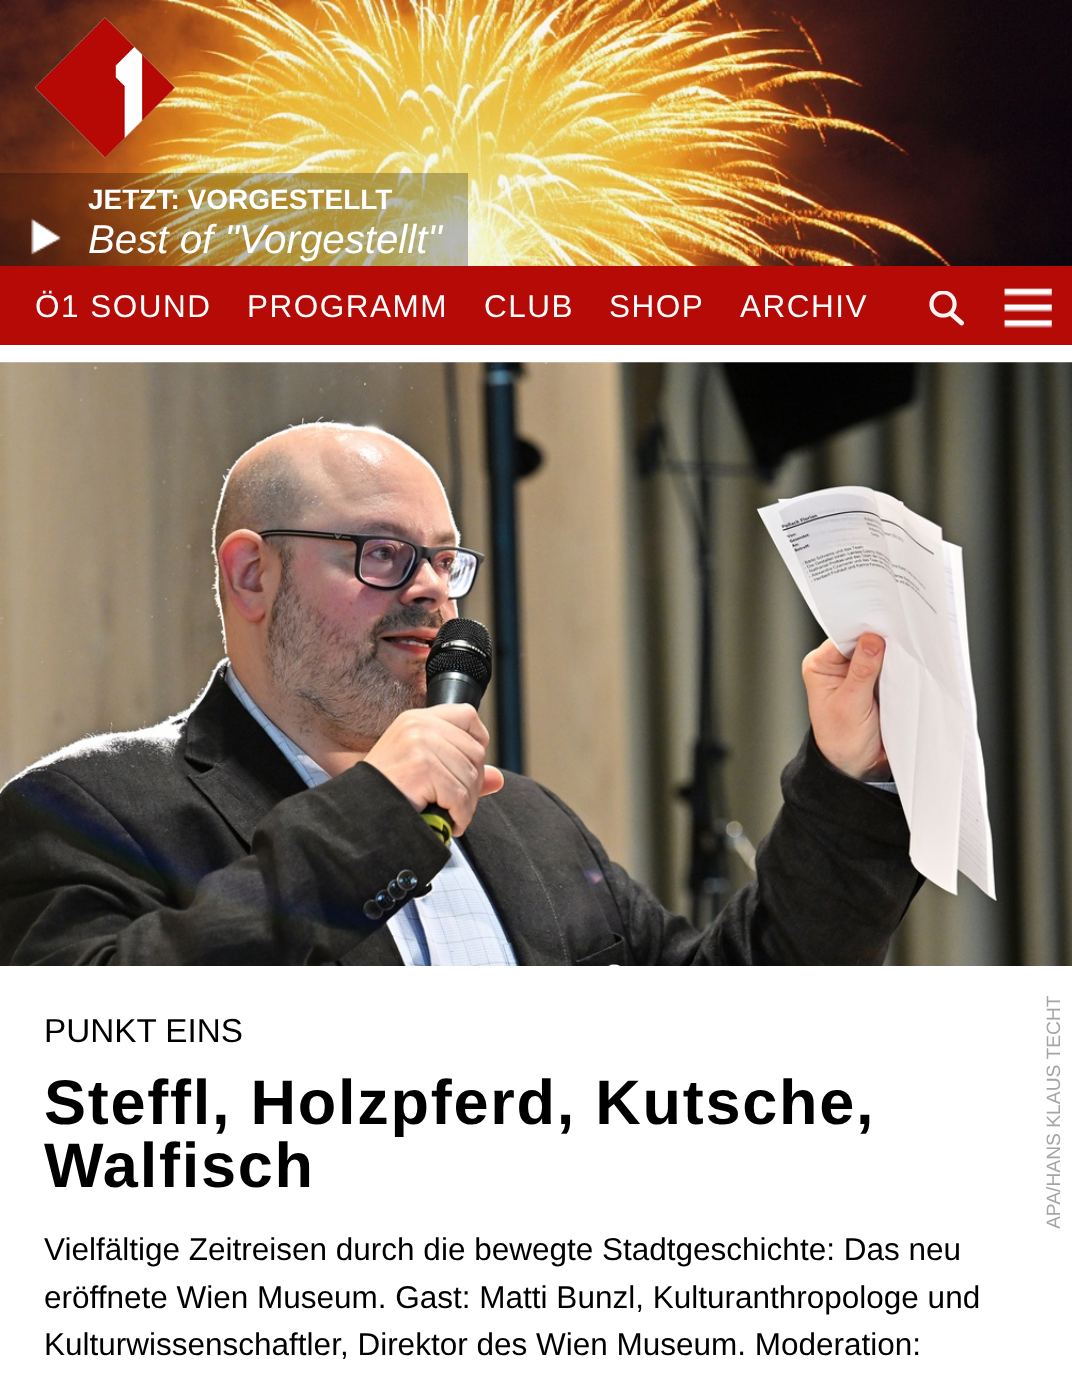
<svg xmlns="http://www.w3.org/2000/svg" width="1072" height="1382">
<defs>
<clipPath id="clip1"><path d="M1043 1228.5v-233.5h21v233.5z"/></clipPath>
</defs>
<rect width="100%" height="100%" fill="#fff"/>
<image x="0" y="0" width="1072" height="266" href="media/2.png"/>
<image x="35" y="17" width="140" height="141" href="media/1.png"/>
<rect y="173" width="468" height="93" fill="#00000040"/>
<text x="88" y="209" style="font-family:Liberation Sans;font-size:28px;font-weight:bold;fill:#fff">JETZT: VORGESTELLT</text>
<image x="31" y="218" width="31" height="37" href="media/3.png"/>
<text x="88" y="253" style="font-family:Liberation Sans;font-size:40.25px;font-style:italic;fill:#fff">Best of "Vorgestellt"</text>
<rect y="266" width="1072" height="79" fill="#b60a06"/>
<text x="35" y="317" style="font-family:Liberation Sans;font-size:31.5px;letter-spacing:1.5px;fill:#fff">Ö1 SOUND</text>
<text x="247" y="317" style="font-family:Liberation Sans;font-size:31.5px;letter-spacing:1.5px;fill:#fff">PROGRAMM</text>
<text x="484" y="317" style="font-family:Liberation Sans;font-size:31.5px;letter-spacing:1.5px;fill:#fff">CLUB</text>
<text x="609" y="317" style="font-family:Liberation Sans;font-size:31.5px;letter-spacing:1.5px;fill:#fff">SHOP</text>
<text x="740" y="317" style="font-family:Liberation Sans;font-size:31.5px;letter-spacing:1.5px;fill:#fff">ARCHIV</text>
<image x="929" y="291" width="35" height="35" href="media/4.png"/>
<image x="1004" y="288" width="48" height="40" href="media/5.png"/>
<text x="44" y="1042" style="font-family:Liberation Sans;font-size:33.25px;fill:#000">PUNKT EINS</text>
<text x="44" y="1124" style="font-family:Liberation Sans;font-size:63px;font-weight:bold;letter-spacing:1.75px;fill:#000">Steffl, Holzpferd, Kutsche,</text>
<text x="44" y="1187" style="font-family:Liberation Sans;font-size:63px;font-weight:bold;letter-spacing:1.75px;fill:#000">Walfisch</text>
<text x="44" y="1260" style="font-family:Liberation Sans;font-size:31.5px;fill:#000">Vielfältige Zeitreisen durch die bewegte Stadtgeschichte: Das neu</text>
<text x="44" y="1308" style="font-family:Liberation Sans;font-size:31.5px;fill:#000">eröffnete Wien Museum. Gast: Matti Bunzl, Kulturanthropologe und</text>
<text x="44" y="1355" style="font-family:Liberation Sans;font-size:31.5px;fill:#000">Kulturwissenschaftler, Direktor des Wien Museum. Moderation:</text>
<image x="0" y="362" width="1072" height="604" href="media/6.png"/>
<g clip-path="url(#clip1)">
<text x="1060" y="1229" transform="rotate(-90 1060 1229)" style="font-family:Liberation Sans;font-size:19.25px;fill:#a5a5a5">APA/HANS KLAUS TECHT</text>
</g>
</svg>
